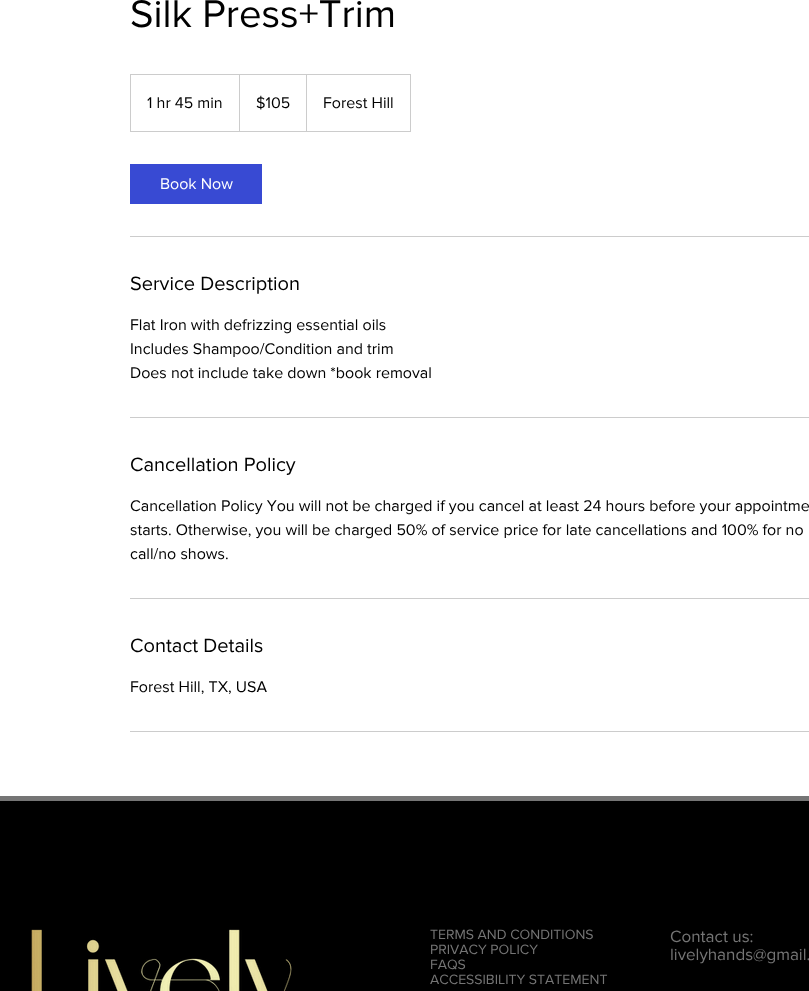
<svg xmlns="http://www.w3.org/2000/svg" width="809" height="991">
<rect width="100%" height="100%" fill="#fff"/>
<text x="130" y="27" style="font-family:'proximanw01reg';font-size:40px;fill:#000">Silk Press+Trim</text>
<rect x="130.5" y="74.5" width="280" height="57" fill="none" stroke="#ccc"/>
<text x="147" y="108" style="font-family:'proximanw01reg';font-size:16px;fill:#000">1 hr 45 min</text>
<path d="M239 131v-57l1 1v56z" fill="#ccc"/>
<text x="256" y="108" style="font-family:'proximanw01reg';font-size:16px;fill:#000">$105</text>
<path d="M306 131v-57l1 1v56z" fill="#ccc"/>
<text x="323" y="108" style="font-family:'proximanw01reg';font-size:16px;fill:#000">Forest Hill</text>
<rect x="130" y="164" width="132" height="40" fill="#384ad3"/>
<text x="160" y="189" style="font-family:'proximanw01reg';font-size:16px;fill:#fff">Book Now</text>
<rect x="130" y="236" width="679" height="1" fill="#ccc"/>
<text x="130" y="290" style="font-family:'proximanw01reg';font-size:20px;fill:#000">Service Description</text>
<text x="130" y="330" style="font-family:'proximanw01reg';font-size:16px;fill:#000">Flat Iron with defrizzing essential oils</text>
<text x="130" y="354" style="font-family:'proximanw01reg';font-size:16px;fill:#000">Includes Shampoo/Condition and trim</text>
<text x="130" y="378" style="font-family:'proximanw01reg';font-size:16px;fill:#000">Does not include take down *book removal</text>
<rect x="130" y="417" width="679" height="1" fill="#ccc"/>
<text x="130" y="471" style="font-family:'proximanw01reg';font-size:20px;fill:#000">Cancellation Policy</text>
<text x="130" y="511" style="font-family:'proximanw01reg';font-size:16px;fill:#000">Cancellation Policy You will not be charged if you cancel at least 24 hours before your appointme</text>
<text x="130" y="535" style="font-family:'proximanw01reg';font-size:16px;fill:#000">starts. Otherwise, you will be charged 50% of service price for late cancellations and 100% for no</text>
<text x="130" y="559" style="font-family:'proximanw01reg';font-size:16px;fill:#000">call/no shows.</text>
<rect x="130" y="598" width="679" height="1" fill="#ccc"/>
<text x="130" y="652" style="font-family:'proximanw01reg';font-size:20px;fill:#000">Contact Details</text>
<text x="130" y="692" style="font-family:'proximanw01reg';font-size:16px;fill:#000">Forest Hill, TX, USA</text>
<rect x="130" y="731" width="679" height="1" fill="#ccc"/>
<rect y="801" width="809" height="190" fill="#000"/>
<rect y="796" width="809" height="5" fill="#757575"/>
<image x="31" y="929" width="261" height="62" href="media/1.png"/>
<text x="430" y="939" style="font-family:'proximanw01reg';font-size:14px;fill:#757575">TERMS AND CONDITIONS</text>
<text x="430" y="954" style="font-family:'proximanw01reg';font-size:14px;fill:#757575">PRIVACY POLICY</text>
<text x="430" y="969" style="font-family:'proximanw01reg';font-size:14px;fill:#757575">FAQS</text>
<text x="430" y="984" style="font-family:'proximanw01reg';font-size:14px;fill:#757575">ACCESSIBILITY STATEMENT</text>
<text x="670" y="942" style="font-family:'proximanw01reg';font-size:17px;fill:#757575">Contact us:</text>
<text x="670" y="960" style="font-family:'proximanw01reg';font-size:17px;fill:#757575">livelyhands@gmail.</text>
</svg>
